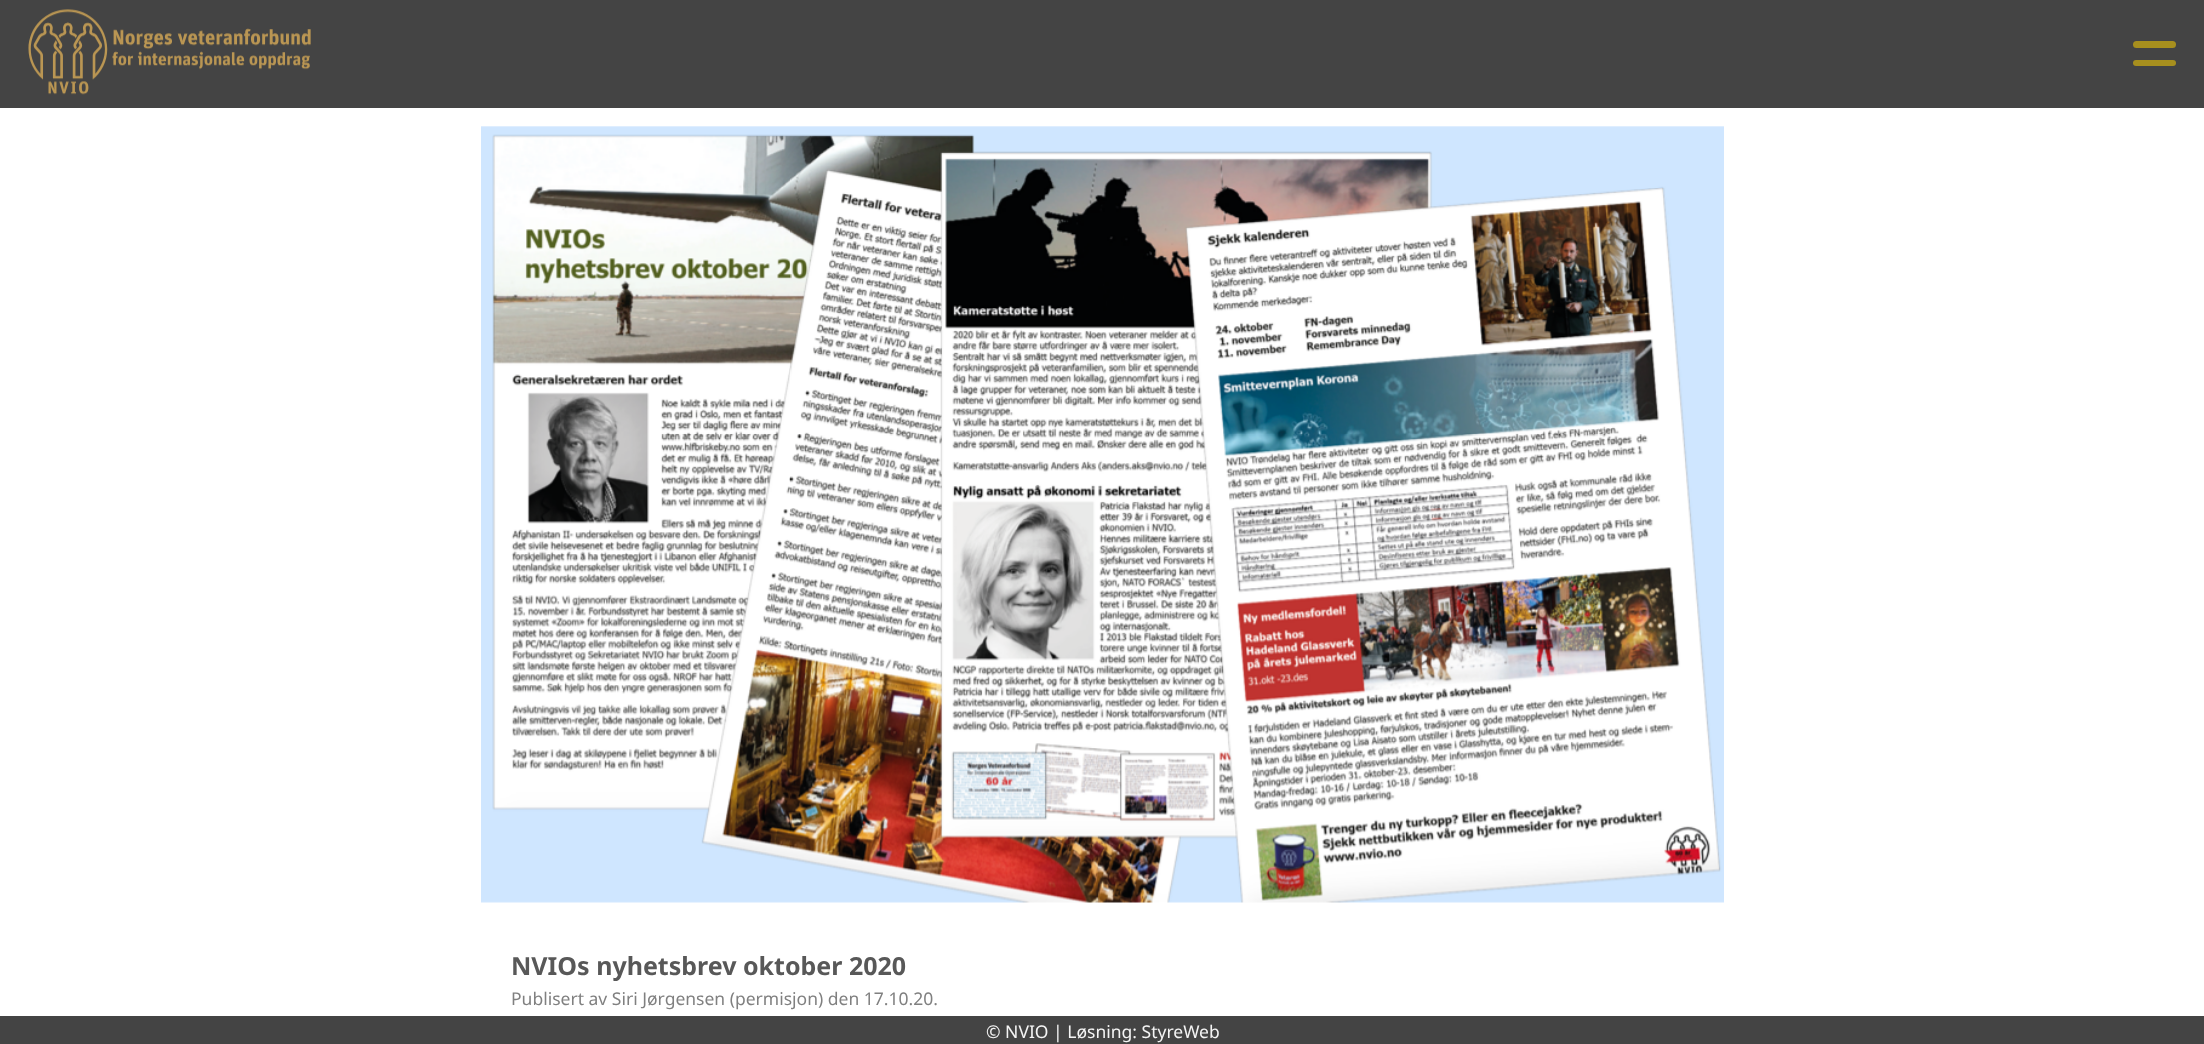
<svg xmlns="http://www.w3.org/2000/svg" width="2204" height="1044">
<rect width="100%" height="100%" fill="#fff"/>
<rect width="2204" height="108" fill="#444"/>
<image x="28" y="9" width="283" height="86" href="media/1.png"/>
<rect x="2133" y="41" width="43" height="7" rx="3.5" fill="#a78f1e"/>
<rect x="2133" y="60" width="43" height="6" rx="3" fill="#a78f1e"/>
<image x="481" y="126" width="1243" height="777" href="media/2.png"/>
<text x="511" y="975" style="font-family:Noto Sans;font-size:25px;font-weight:bold;fill:#585858">NVIOs nyhetsbrev oktober 2020</text>
<text x="511" y="1005" style="font-family:Noto Sans;font-size:17.5px;fill:#808080">Publisert av Siri Jørgensen (permisjon) den 17.10.20.</text>
<rect y="1016" width="2204" height="28" fill="#444"/>
<text x="986" y="1038" style="font-family:Noto Sans;font-size:17.5px;fill:#f5f5f5">© NVIO | Løsning: StyreWeb</text>
</svg>
